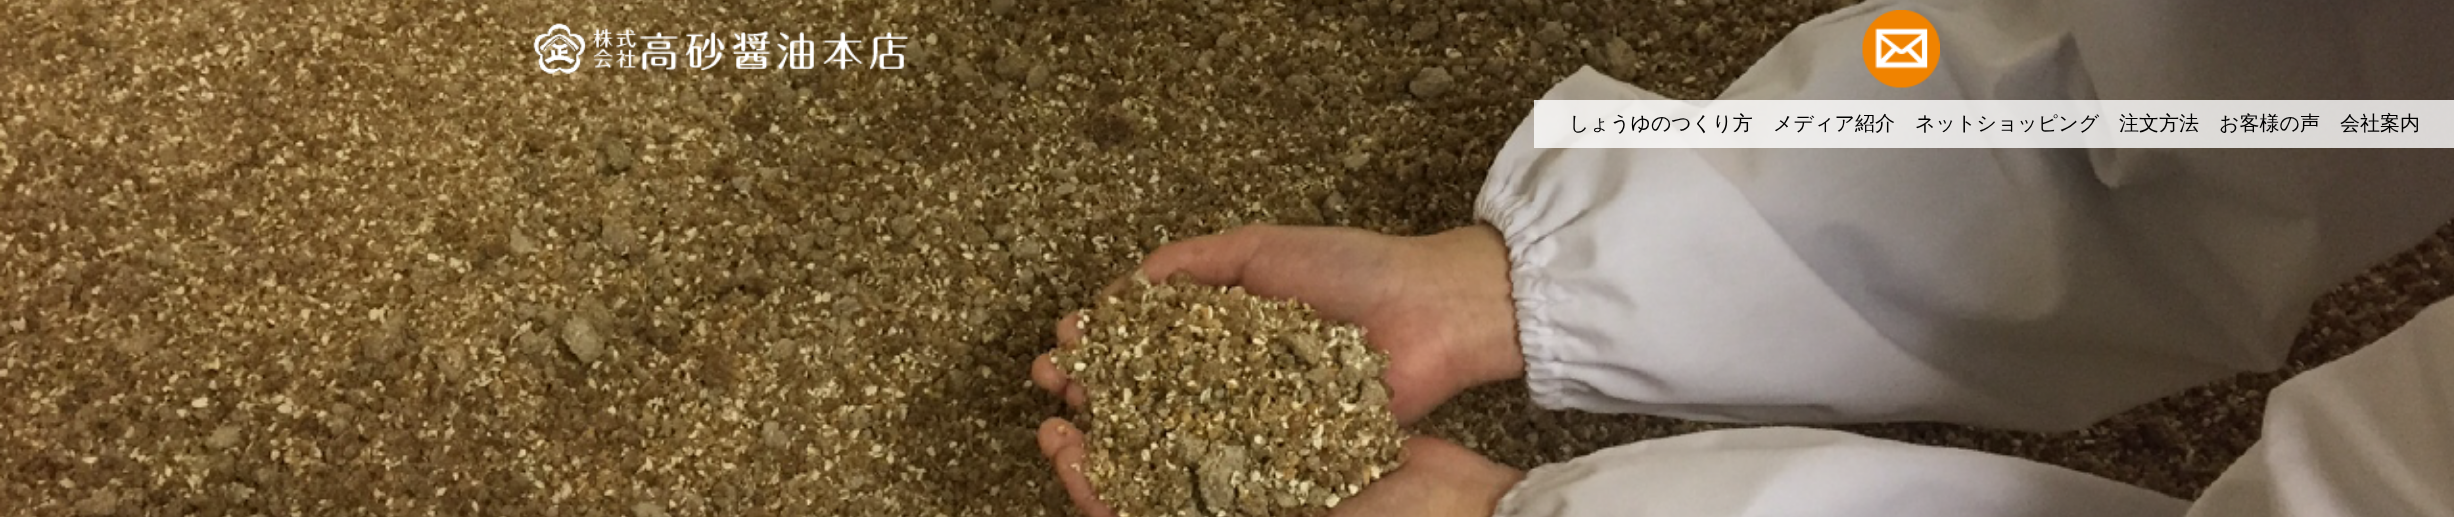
<svg xmlns="http://www.w3.org/2000/svg" width="2454" height="517">
<rect width="100%" height="100%" fill="#fff"/>
<image x="0" y="0" width="2454" height="517" href="media/1.png"/>
<image x="533" y="23" width="375" height="51" href="media/2.png"/>
<image x="1862" y="10" width="78" height="78" href="media/3.png"/>
<rect x="1534" y="100" width="920" height="48" fill="#ffffffcc"/>
<text x="1569" y="130" style="font-family:WenQuanYi Zen Hei;font-size:20px;font-weight:500;fill:#000">しょうゆのつくり方</text>
<text x="1773" y="130" style="font-family:WenQuanYi Zen Hei;font-size:20px;font-weight:500;fill:#000">メディア紹介</text>
<text x="1915" y="130" style="font-family:WenQuanYi Zen Hei;font-size:20px;font-weight:500;fill:#000">ネットショッピング</text>
<text x="2119" y="130" style="font-family:WenQuanYi Zen Hei;font-size:20px;font-weight:500;fill:#000">注文方法</text>
<text x="2219" y="130" style="font-family:WenQuanYi Zen Hei;font-size:20px;font-weight:500;fill:#000">お客様の声</text>
<text x="2340" y="130" style="font-family:WenQuanYi Zen Hei;font-size:20px;font-weight:500;fill:#000">会社案内</text>
</svg>
